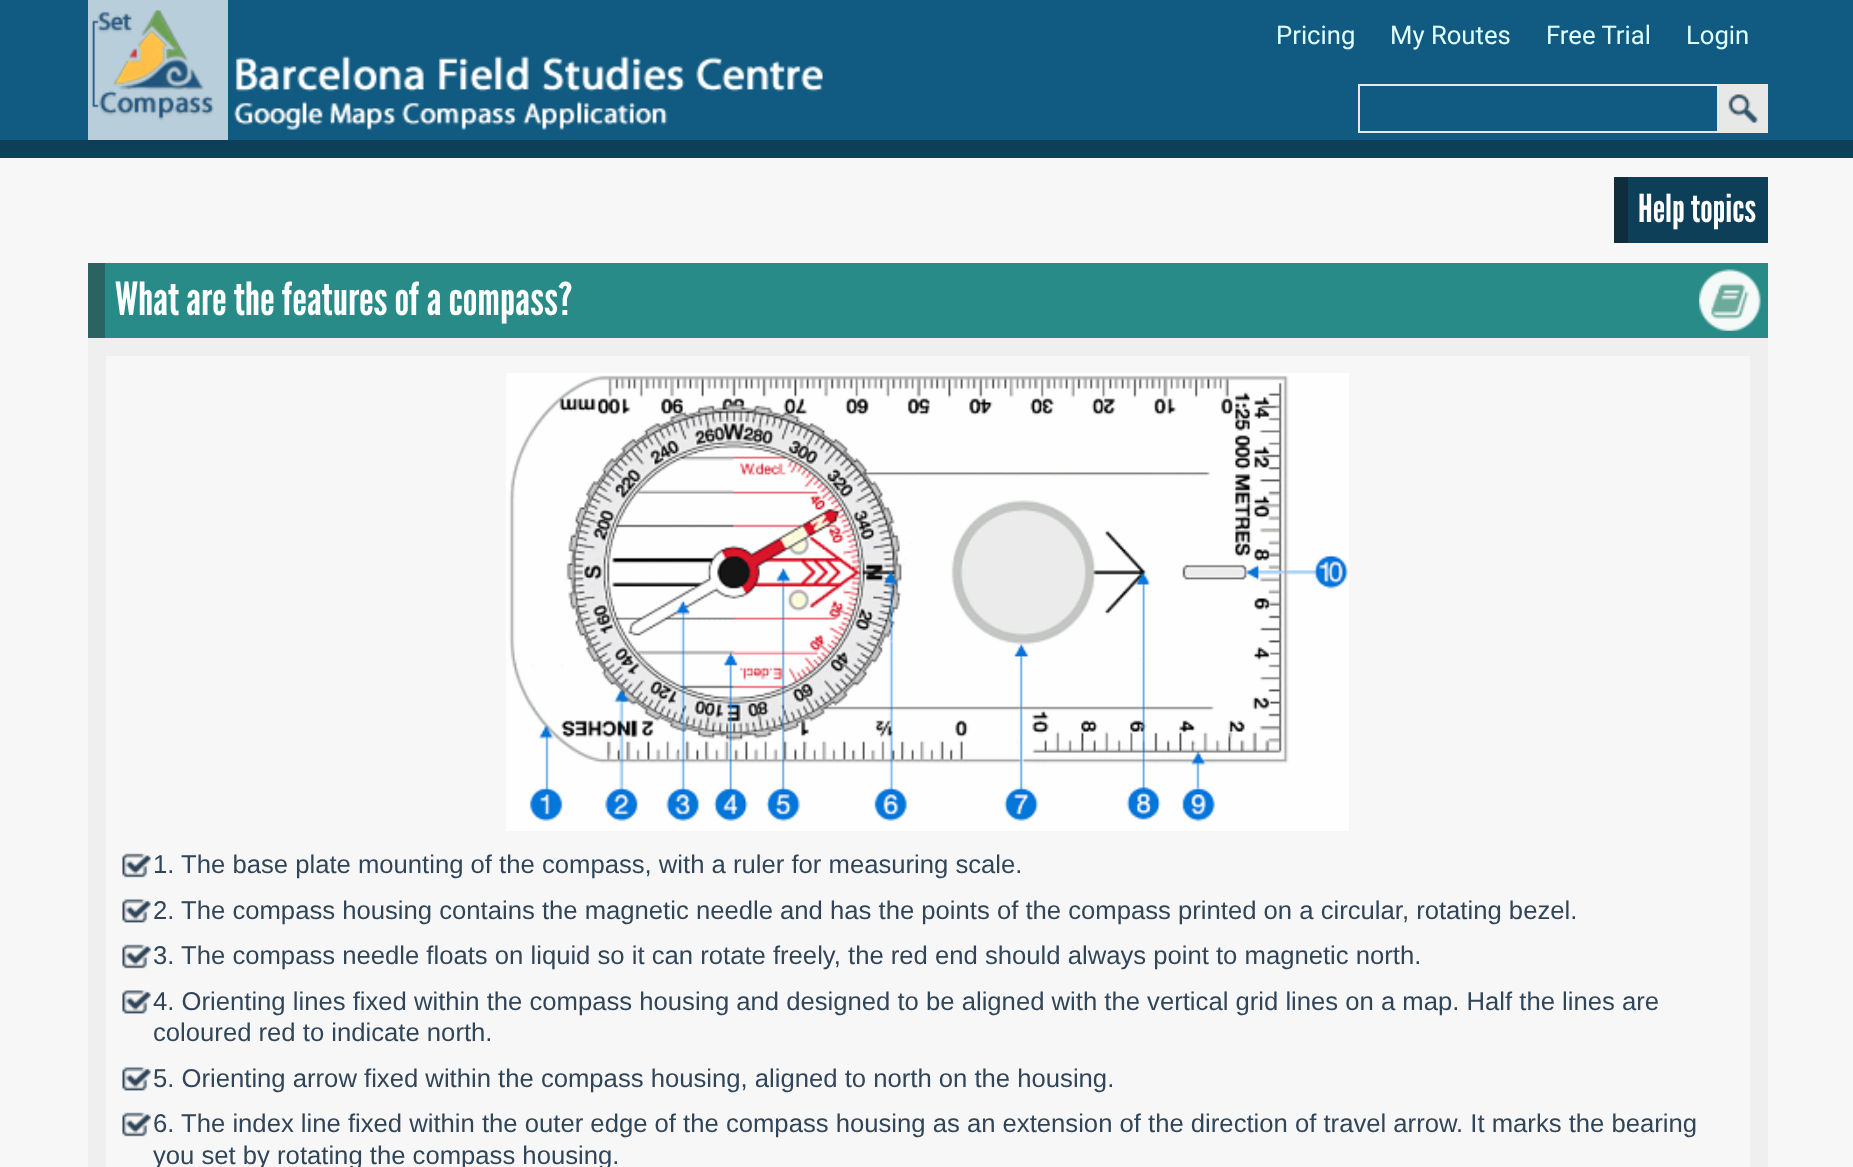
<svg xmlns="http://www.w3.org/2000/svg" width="1853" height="1167">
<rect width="100%" height="100%" fill="#f7f7f7"/>
<rect width="1853" height="140" fill="#115b82"/>
<rect y="140" width="1853" height="18" fill="#0e3f58"/>
<rect x="88" width="140" height="140" fill="#b8ceda"/>
<image x="92" y="10" width="731" height="120" href="media/1.png"/>
<text x="1276" y="44" style="font-family:Roboto;font-size:25.67px;fill:#dffffe">Pricing</text>
<text x="1390" y="44" style="font-family:Roboto;font-size:25.67px;fill:#dffffe">My Routes</text>
<text x="1546" y="44" style="font-family:Roboto;font-size:25.67px;fill:#dffffe">Free Trial</text>
<text x="1686" y="44" style="font-family:Roboto;font-size:25.67px;fill:#dffffe">Login</text>
<rect x="1359" y="85" width="408" height="47" fill="none" stroke="#e8e8e8" stroke-width="2"/>
<rect x="1717" y="86" width="49" height="45" fill="#e8e8e8"/>
<image x="1728" y="94" width="30" height="29" href="media/2.png"/>
<rect x="1628" y="177" width="140" height="66" fill="#0e3f58"/>
<rect x="1614" y="177" width="14" height="66" fill="#0f2d3c"/>
<text x="1638" y="222" style="font-family:League Gothic;font-size:38.5px;fill:#fff">Help topics</text>
<rect x="105" y="263" width="1663" height="75" fill="#288b87"/>
<rect x="88" y="263" width="17" height="75" fill="#2b6361"/>
<text x="115" y="315" style="font-family:League Gothic;font-size:45.5px;fill:#fff">What are the features of a compass?</text>
<image x="1699" y="269" width="62" height="62" href="media/3.png"/>
<rect x="97" y="347" width="1662" height="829" fill="none" stroke="#efefef" stroke-width="18"/>
<image x="506" y="373" width="843" height="458" href="media/4.png"/>
<image x="122" y="853" width="29" height="25" href="media/5.png"/>
<text x="153" y="873" style="font-family:Liberation Sans;font-size:25.67px;fill:#314559">1. The base plate mounting of the compass, with a ruler for measuring scale.</text>
<image x="122" y="899" width="29" height="24" href="media/6.png"/>
<text x="153" y="919" style="font-family:Liberation Sans;font-size:25.67px;fill:#314559">2. The compass housing contains the magnetic needle and has the points of the compass printed on a circular, rotating bezel.</text>
<image x="122" y="944" width="29" height="25" href="media/5.png"/>
<text x="153" y="964" style="font-family:Liberation Sans;font-size:25.67px;fill:#314559">3. The compass needle floats on liquid so it can rotate freely, the red end should always point to magnetic north.</text>
<image x="122" y="990" width="29" height="24" href="media/6.png"/>
<text x="153" y="1010" style="font-family:Liberation Sans;font-size:25.67px;fill:#314559">4. Orienting lines fixed within the compass housing and designed to be aligned with the vertical grid lines on a map. Half the lines are</text>
<text x="153" y="1041" style="font-family:Liberation Sans;font-size:25.67px;fill:#314559">coloured red to indicate north.</text>
<image x="122" y="1067" width="29" height="24" href="media/6.png"/>
<text x="153" y="1087" style="font-family:Liberation Sans;font-size:25.67px;fill:#314559">5. Orienting arrow fixed within the compass housing, aligned to north on the housing.</text>
<image x="122" y="1112" width="29" height="25" href="media/5.png"/>
<text x="153" y="1132" style="font-family:Liberation Sans;font-size:25.67px;fill:#314559">6. The index line fixed within the outer edge of the compass housing as an extension of the direction of travel arrow. It marks the bearing</text>
<text x="153" y="1164" style="font-family:Liberation Sans;font-size:25.67px;fill:#314559">you set by rotating the compass housing.</text>
</svg>
